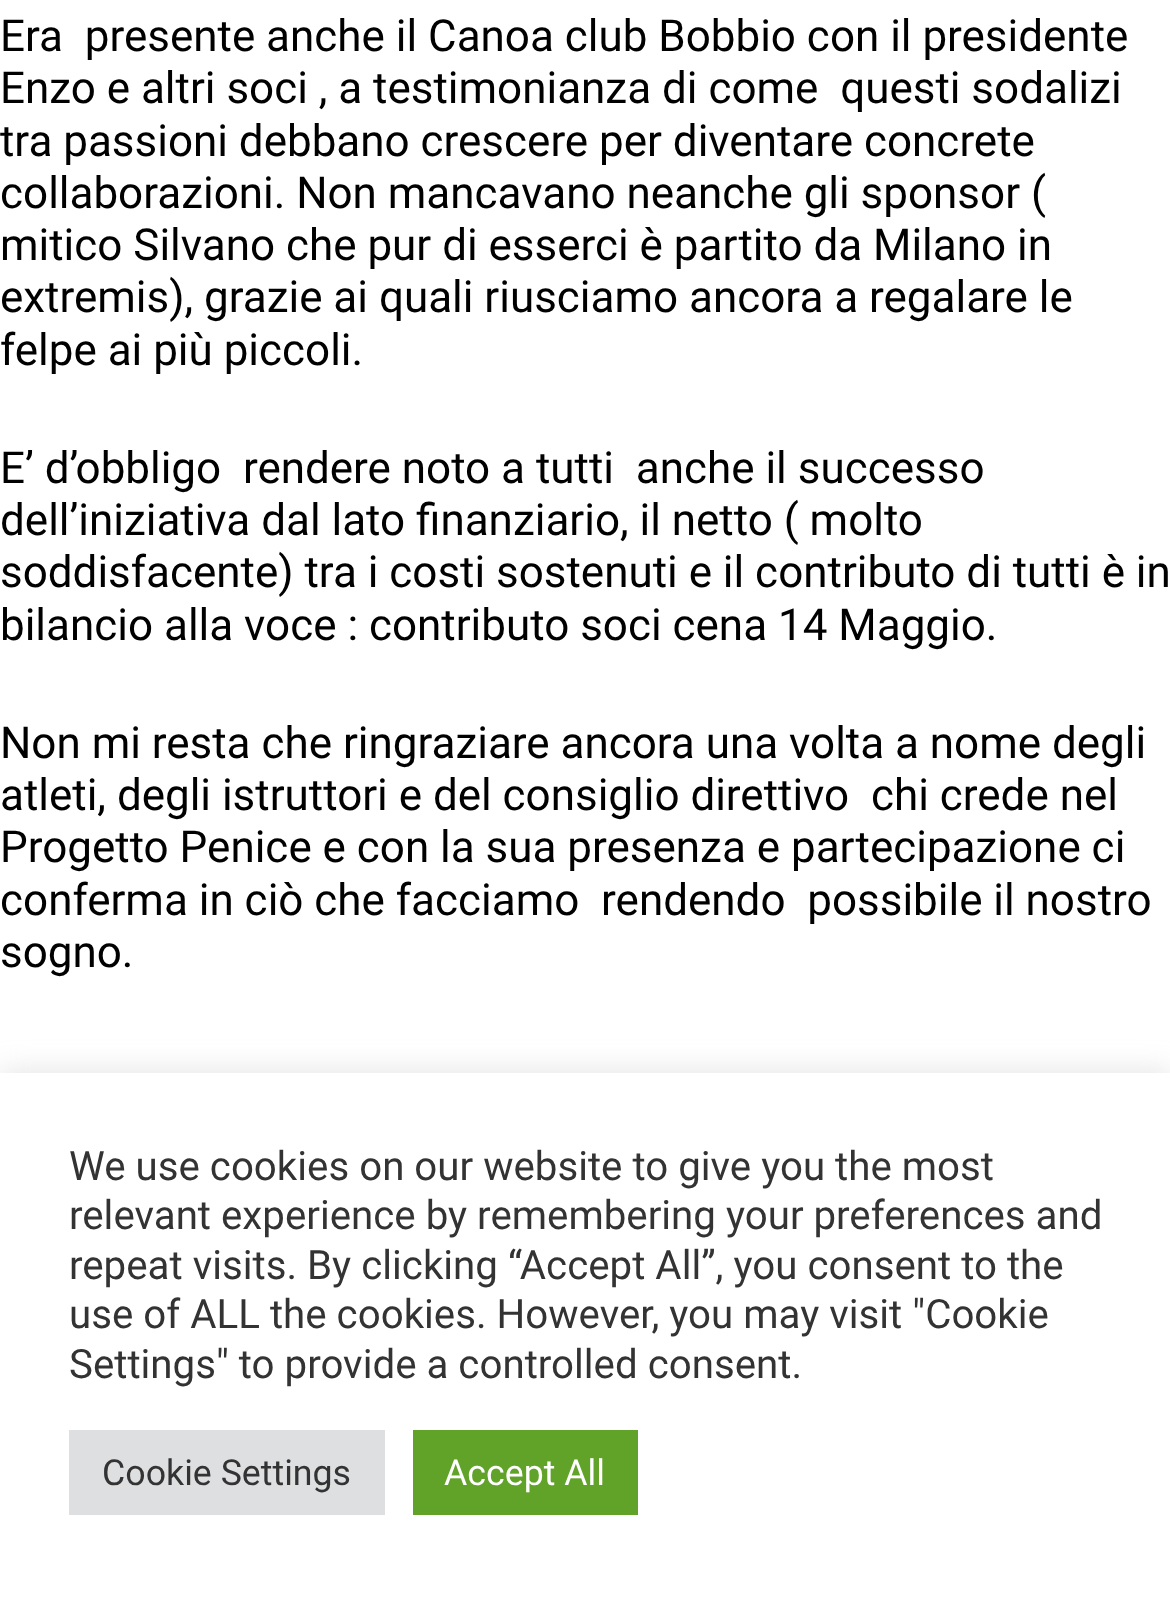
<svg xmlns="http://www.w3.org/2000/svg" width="1170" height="1597">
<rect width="100%" height="100%" fill="#fff"/>
<text x="0" y="51" style="font-family:Roboto;font-size:44px;fill:#000" xml:space="preserve">Era  presente anche il Canoa club Bobbio con il presidente</text>
<text x="0" y="103" style="font-family:Roboto;font-size:44px;fill:#000" xml:space="preserve">Enzo e altri soci , a testimonianza di come  questi sodalizi</text>
<text x="0" y="156" style="font-family:Roboto;font-size:44px;fill:#000">tra passioni debbano crescere per diventare concrete</text>
<text x="0" y="208" style="font-family:Roboto;font-size:44px;fill:#000">collaborazioni. Non mancavano neanche gli sponsor (</text>
<text x="0" y="260" style="font-family:Roboto;font-size:44px;fill:#000">mitico Silvano che pur di esserci è partito da Milano in</text>
<text x="0" y="312" style="font-family:Roboto;font-size:44px;fill:#000">extremis), grazie ai quali riusciamo ancora a regalare le</text>
<text x="0" y="365" style="font-family:Roboto;font-size:44px;fill:#000">felpe ai più piccoli.</text>
<text x="0" y="483" style="font-family:Roboto;font-size:44px;fill:#000" xml:space="preserve">E’ d’obbligo  rendere noto a tutti  anche il successo</text>
<text x="0" y="535" style="font-family:Roboto;font-size:44px;fill:#000">dell’iniziativa dal lato finanziario, il netto ( molto</text>
<text x="0" y="587" style="font-family:Roboto;font-size:44px;fill:#000">soddisfacente) tra i costi sostenuti e il contributo di tutti è in</text>
<text x="0" y="640" style="font-family:Roboto;font-size:44px;fill:#000">bilancio alla voce : contributo soci cena 14 Maggio.</text>
<text x="0" y="758" style="font-family:Roboto;font-size:44px;fill:#000">Non mi resta che ringraziare ancora una volta a nome degli</text>
<text x="0" y="810" style="font-family:Roboto;font-size:44px;fill:#000" xml:space="preserve">atleti, degli istruttori e del consiglio direttivo  chi crede nel</text>
<text x="0" y="862" style="font-family:Roboto;font-size:44px;fill:#000">Progetto Penice e con la sua presenza e partecipazione ci</text>
<text x="0" y="915" style="font-family:Roboto;font-size:44px;fill:#000" xml:space="preserve">conferma in ciò che facciamo  rendendo  possibile il nostro</text>
<text x="0" y="967" style="font-family:Roboto;font-size:44px;fill:#000">sogno.</text>
<rect y="1070" width="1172" height="525" fill="#acabab4d" filter="blur(14px)"/>
<rect y="1073" width="1170" height="524" fill="#fff"/>
<text x="69" y="1180" style="font-family:Roboto;font-size:40.3px;fill:#333">We use cookies on our website to give you the most</text>
<text x="69" y="1229" style="font-family:Roboto;font-size:40.3px;fill:#333">relevant experience by remembering your preferences and</text>
<text x="69" y="1279" style="font-family:Roboto;font-size:40.3px;fill:#333">repeat visits. By clicking “Accept All”, you consent to the</text>
<text x="69" y="1328" style="font-family:Roboto;font-size:40.3px;fill:#333">use of ALL the cookies. However, you may visit "Cookie</text>
<text x="69" y="1378" style="font-family:Roboto;font-size:40.3px;fill:#333">Settings" to provide a controlled consent.</text>
<rect x="69" y="1430" width="316" height="85" fill="#dedfe0"/>
<text x="102" y="1485" style="font-family:Roboto;font-size:35.75px;fill:#333">Cookie Settings</text>
<rect x="413" y="1430" width="225" height="85" fill="#61a229"/>
<text x="444" y="1485" style="font-family:Roboto;font-size:35.75px;fill:#fff">Accept All</text>
</svg>
